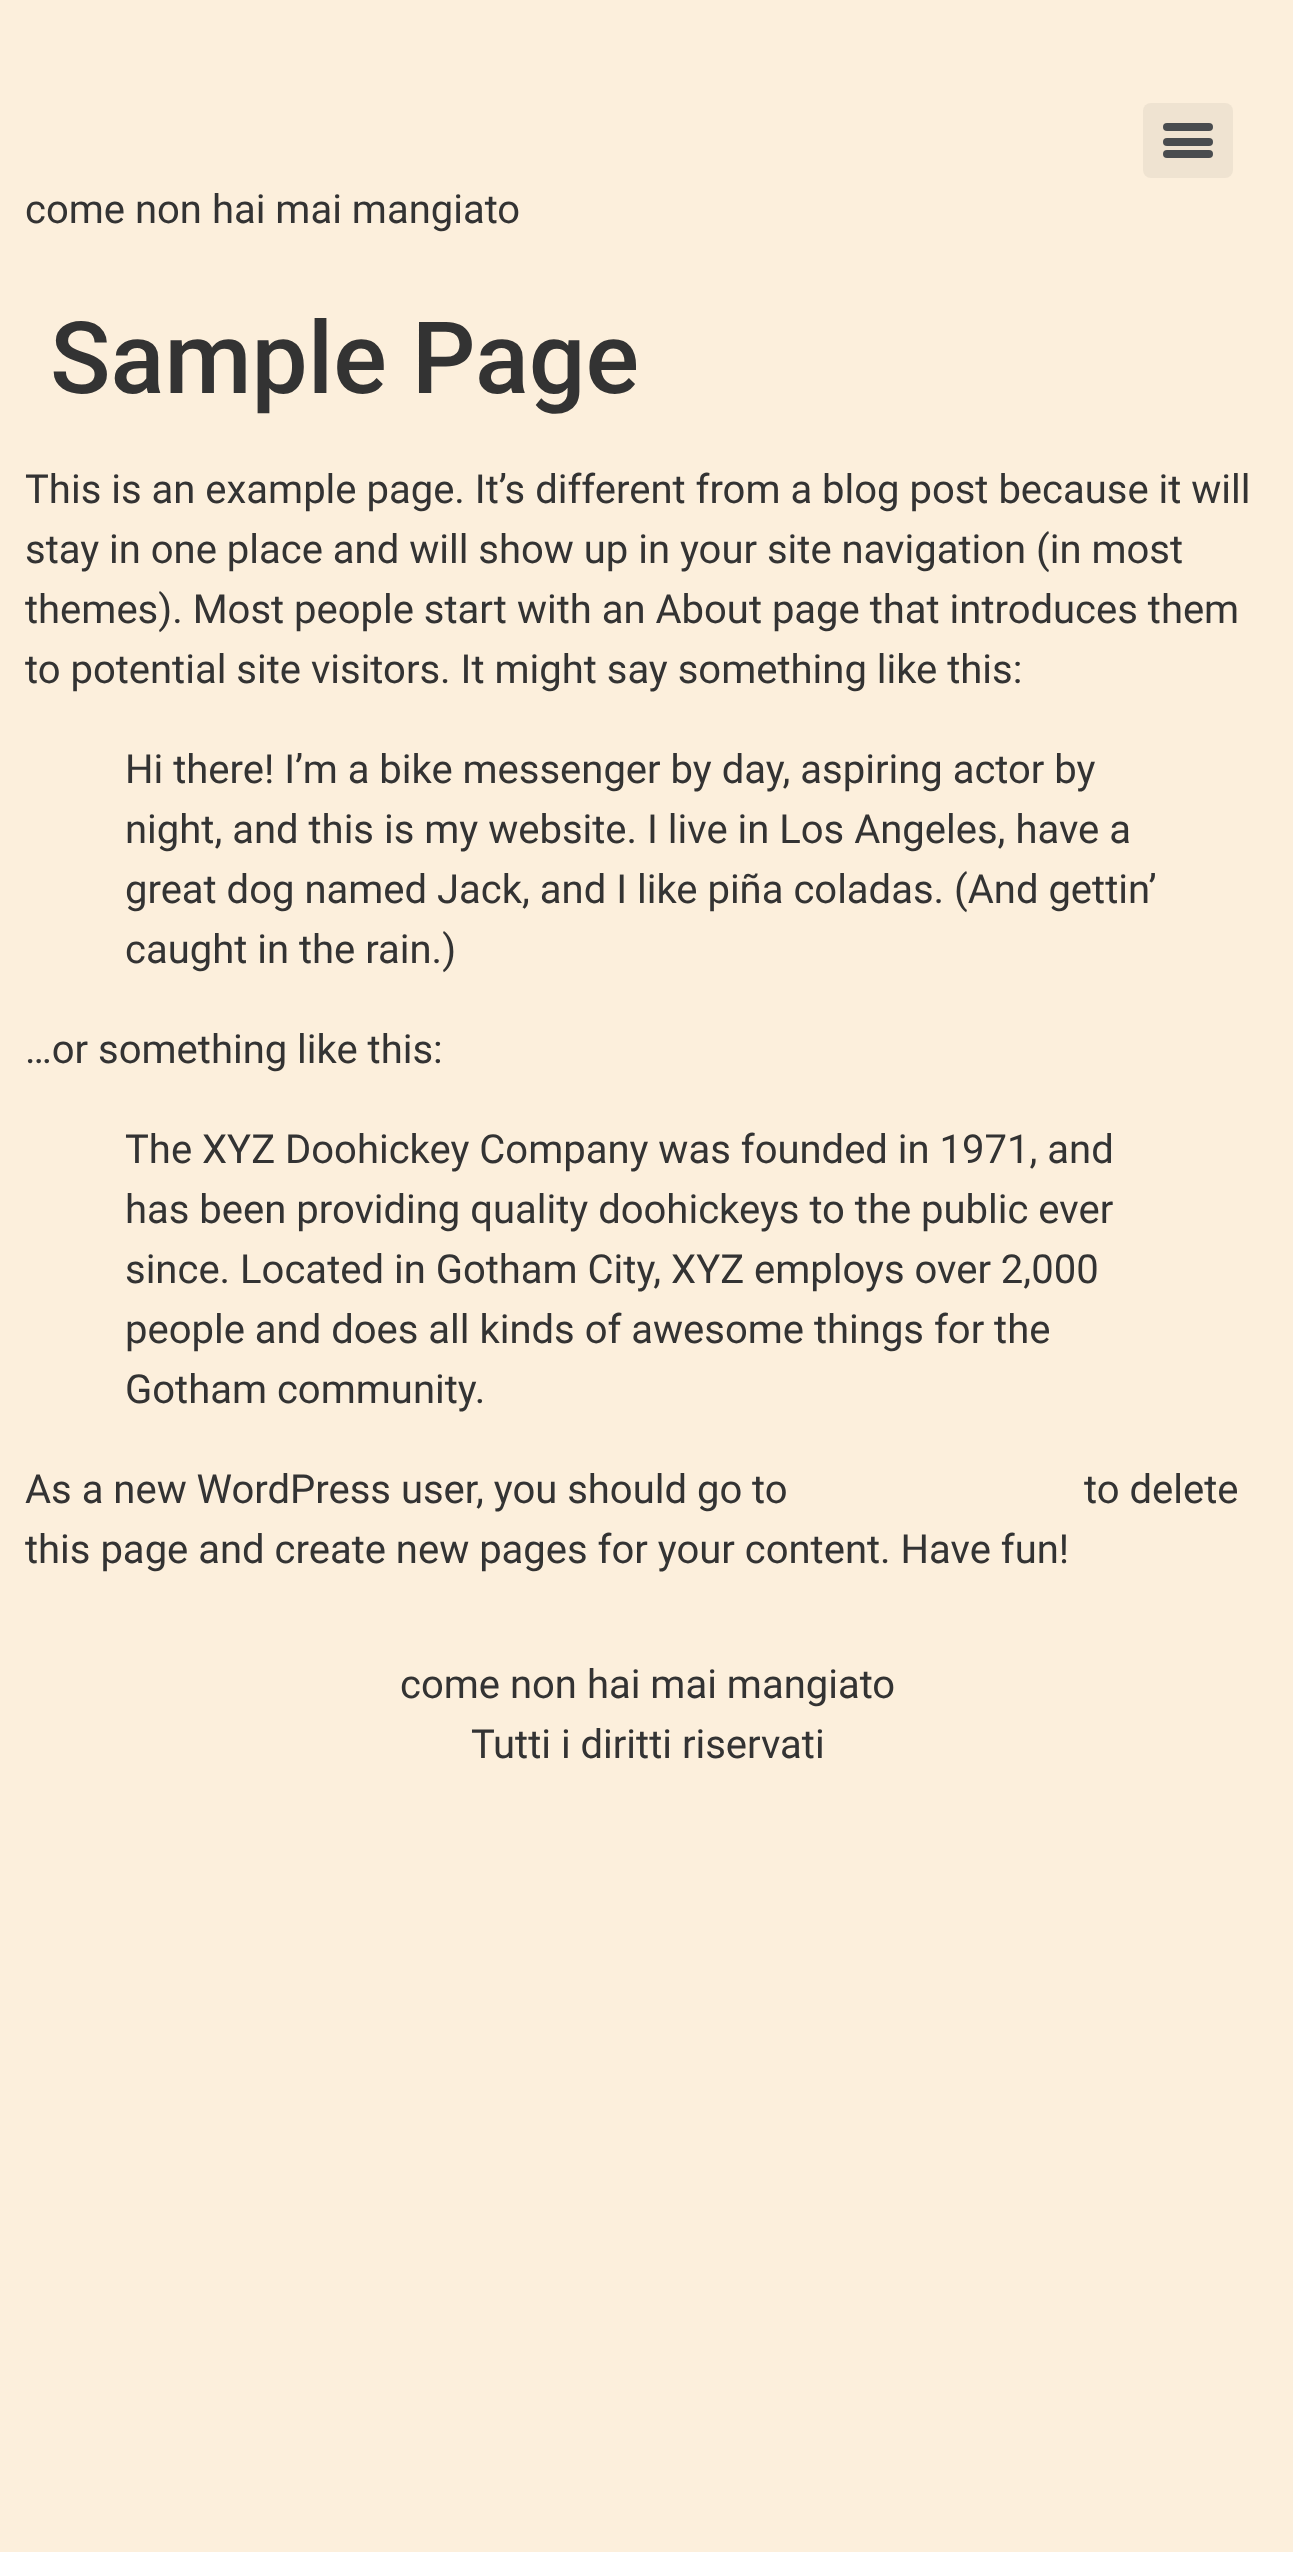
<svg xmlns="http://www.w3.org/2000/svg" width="1293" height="2552">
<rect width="100%" height="100%" fill="#fcefdc"/>
<rect x="1143" y="103" width="90" height="75" rx="8" fill="#efe3d1"/>
<rect x="1163" y="138" width="50" height="8" rx="4" fill="#494c4f"/>
<rect x="1163" y="123" width="50" height="8" rx="4" fill="#494c4f"/>
<rect x="1163" y="150" width="50" height="8" rx="4" fill="#494c4f"/>
<text x="25" y="223" style="font-family:Roboto;font-size:40px;fill:#333">come non hai mai mangiato</text>
<text x="50" y="393" style="font-family:Roboto;font-size:100px;font-weight:500;fill:#333">Sample Page</text>
<text x="25" y="503" style="font-family:Roboto;font-size:40px;fill:#333">This is an example page. It’s different from a blog post because it will</text>
<text x="25" y="563" style="font-family:Roboto;font-size:40px;fill:#333">stay in one place and will show up in your site navigation (in most</text>
<text x="25" y="623" style="font-family:Roboto;font-size:40px;fill:#333">themes). Most people start with an About page that introduces them</text>
<text x="25" y="683" style="font-family:Roboto;font-size:40px;fill:#333">to potential site visitors. It might say something like this:</text>
<text x="125" y="783" style="font-family:Roboto;font-size:40px;fill:#333">Hi there! I’m a bike messenger by day, aspiring actor by</text>
<text x="125" y="843" style="font-family:Roboto;font-size:40px;fill:#333">night, and this is my website. I live in Los Angeles, have a</text>
<text x="125" y="903" style="font-family:Roboto;font-size:40px;fill:#333">great dog named Jack, and I like piña coladas. (And gettin’</text>
<text x="125" y="963" style="font-family:Roboto;font-size:40px;fill:#333">caught in the rain.)</text>
<text x="25" y="1063" style="font-family:Roboto;font-size:40px;fill:#333">…or something like this:</text>
<text x="125" y="1163" style="font-family:Roboto;font-size:40px;fill:#333">The XYZ Doohickey Company was founded in 1971, and</text>
<text x="125" y="1223" style="font-family:Roboto;font-size:40px;fill:#333">has been providing quality doohickeys to the public ever</text>
<text x="125" y="1283" style="font-family:Roboto;font-size:40px;fill:#333">since. Located in Gotham City, XYZ employs over 2,000</text>
<text x="125" y="1343" style="font-family:Roboto;font-size:40px;fill:#333">people and does all kinds of awesome things for the</text>
<text x="125" y="1403" style="font-family:Roboto;font-size:40px;fill:#333">Gotham community.</text>
<text x="25" y="1503" style="font-family:Roboto;font-size:40px;fill:#333">As a new WordPress user, you should go to</text>
<text x="1084" y="1503" style="font-family:Roboto;font-size:40px;fill:#333">to delete</text>
<text x="25" y="1563" style="font-family:Roboto;font-size:40px;fill:#333">this page and create new pages for your content. Have fun!</text>
<text x="400" y="1698" style="font-family:Roboto;font-size:40px;fill:#333">come non hai mai mangiato</text>
<text x="471" y="1758" style="font-family:Roboto;font-size:40px;fill:#333">Tutti i diritti riservati</text>
</svg>
